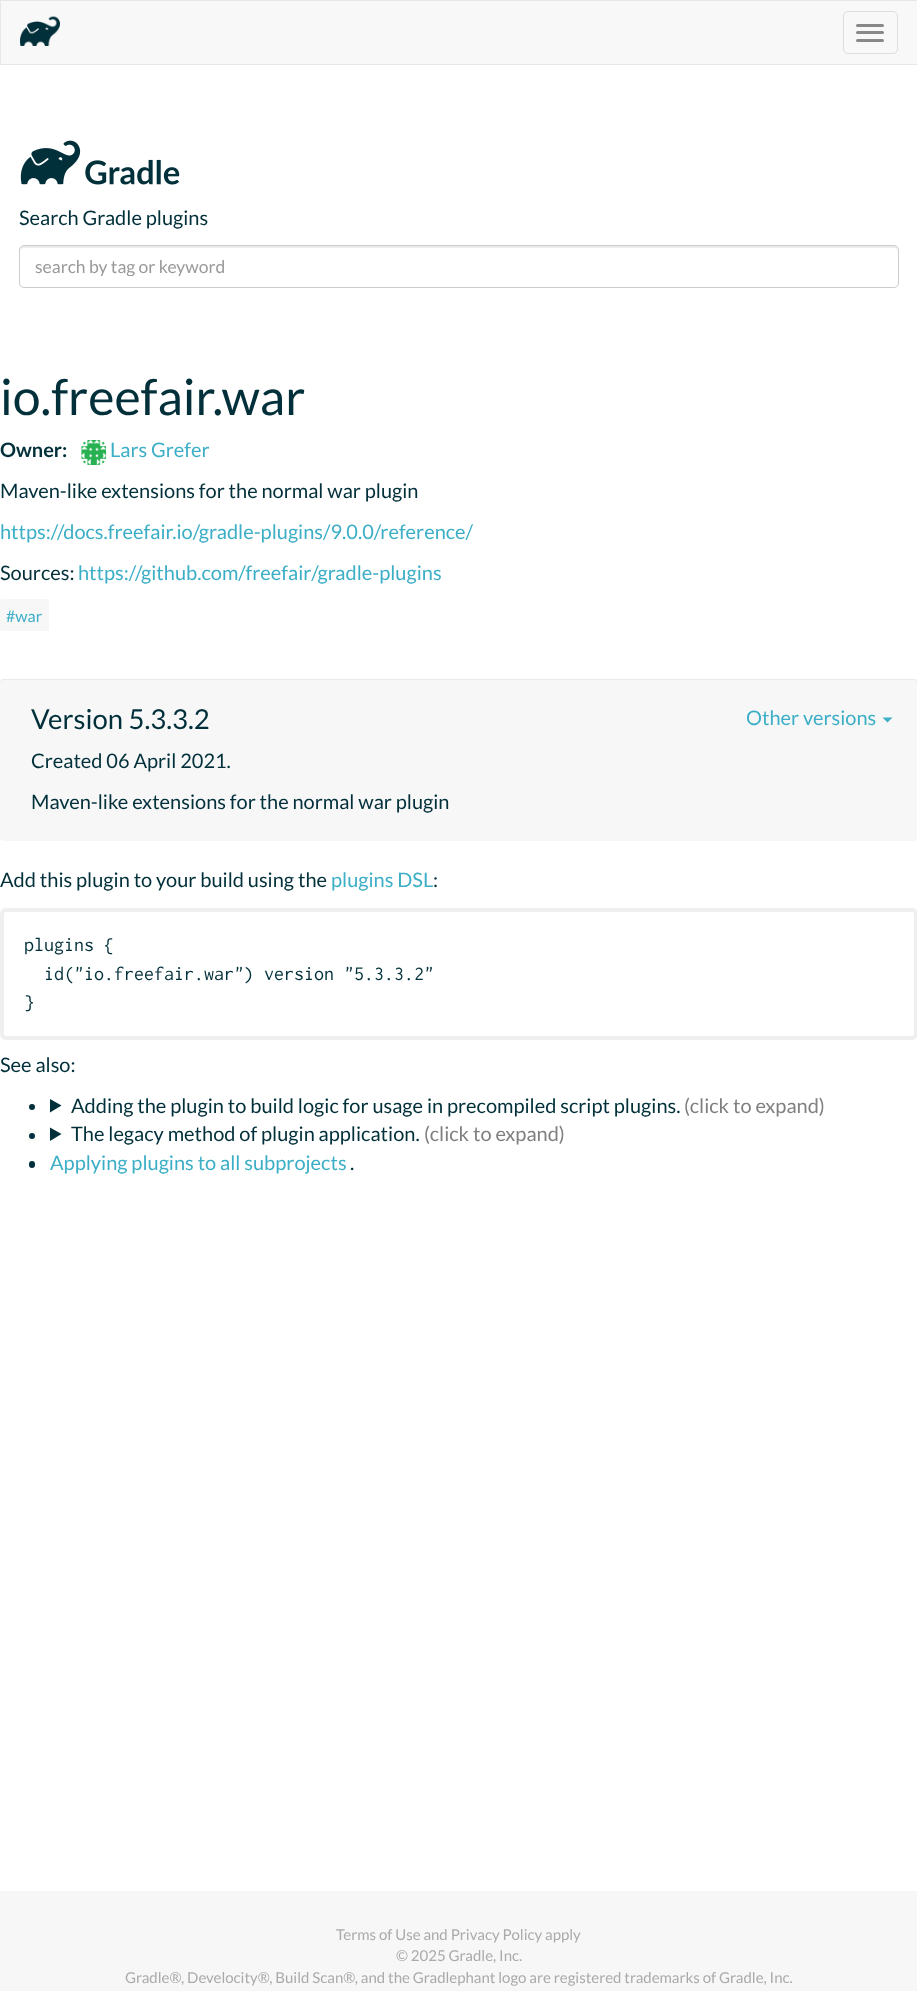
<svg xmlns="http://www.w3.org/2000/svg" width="917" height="1991">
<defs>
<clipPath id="clip1"><rect x="35" y="255" width="848" height="21"/></clipPath>
</defs>
<rect width="100%" height="100%" fill="#fff"/>
<rect x="0.5" y="0.5" width="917" height="64" fill="#f8f8f8" stroke="#e7e7e7"/>
<image x="20" y="16" width="40" height="30" href="media/1.png"/>
<rect x="843.5" y="11.5" width="54" height="42" rx="4.5" fill="none" stroke="#ddd"/>
<rect x="856" y="24" width="28" height="3" rx="1.5" fill="#888"/>
<rect x="856" y="31" width="28" height="3" rx="1.5" fill="#888"/>
<rect x="856" y="39" width="28" height="3" rx="1.5" fill="#888"/>
<image x="20" y="140" width="160" height="45" href="media/2.png"/>
<text x="19" y="225" style="font-family:Lato;font-size:20px;fill:#02303a">Search Gradle plugins</text>
<path d="M24 248h870c2 0 4 1 4 3c0-3-1-5-4-5h-870c-3 0-4 2-4 5c0-2 2-3 4-3z" fill="#ececec"/>
<rect x="19.5" y="245.5" width="879" height="42" rx="4.5" fill="none" stroke="#ccc"/>
<g clip-path="url(#clip1)">
<text x="35" y="273" style="font-family:Lato;font-size:17.5px;fill:#999">search by tag or keyword</text>
</g>
<text x="0" y="415" style="font-family:Lato;font-size:50px;fill:#02303a">io.freefair.war</text>
<text x="0" y="457" style="font-family:Lato;font-size:20px;font-weight:bold;fill:#02303a">Owner:</text>
<image x="81" y="440" width="26" height="25" href="media/3.png"/>
<text x="110" y="457" style="font-family:Lato;font-size:20px;fill:#3cafc6">Lars Grefer</text>
<text x="0" y="498" style="font-family:Lato;font-size:20px;fill:#02303a">Maven-like extensions for the normal war plugin</text>
<text x="0" y="539" style="font-family:Lato;font-size:20px;fill:#3cafc6">https://docs.freefair.io/gradle-plugins/9.0.0/reference/</text>
<text x="0" y="580" style="font-family:Lato;font-size:20px;fill:#02303a">Sources:</text>
<text x="78" y="580" style="font-family:Lato;font-size:20px;fill:#3cafc6">https://github.com/freefair/gradle-plugins</text>
<rect y="599" width="49" height="32" rx="2.5" fill="#f7f7f8"/>
<text x="6" y="622" style="font-family:Lato;font-size:16px;fill:#3cafc6">#war</text>
<rect y="679" width="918" height="162" rx="4" fill="#f7f7f8"/>
<path d="M4 680h910c2 0 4 2 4 4c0-3-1-5-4-5h-910c-3 0-4 2-4 5c0-2 2-4 4-4z" fill="#0000000d"/>
<text x="31" y="729" style="font-family:Lato;font-size:27.5px;fill:#02303a">Version 5.3.3.2</text>
<text x="746" y="725" style="font-family:Lato;font-size:20px;fill:#3cafc6">Other versions</text>
<path d="M882.5 717.5h10l-5 5z" fill="#3cafc6"/>
<text x="31" y="768" style="font-family:Lato;font-size:20px;fill:#02303a">Created 06 April 2021.</text>
<text x="31" y="809" style="font-family:Lato;font-size:20px;fill:#02303a">Maven-like extensions for the normal war plugin</text>
<text x="0" y="887" style="font-family:Lato;font-size:20px;fill:#02303a">Add this plugin to your build using the</text>
<text x="331" y="887" style="font-family:Lato;font-size:20px;fill:#3cafc6">plugins DSL</text>
<text x="433" y="887" style="font-family:Lato;font-size:20px;fill:#02303a">:</text>
<rect x="2" y="910" width="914" height="128" rx="4" fill="none" stroke="#efefef" stroke-width="4"/>
<text x="24" y="951" style="font-family:Inconsolata;font-size:20px;font-weight:500;fill:#02303a">plugins {</text>
<text x="44" y="980" style="font-family:Inconsolata;font-size:20px;font-weight:500;fill:#02303a">id("io.freefair.war") version "5.3.3.2"</text>
<text x="24" y="1008" style="font-family:Inconsolata;font-size:20px;font-weight:500;fill:#02303a">}</text>
<text x="0" y="1072" style="font-family:Lato;font-size:20px;fill:#02303a">See also:</text>
<circle cx="32" cy="1107" r="3" fill="#02303a"/>
<path d="M50 1099l11.5 6.5l-11.5 7z" fill="#02303a"/>
<text x="71" y="1113" style="font-family:Lato;font-size:20px;fill:#02303a">Adding the plugin to build logic for usage in precompiled script plugins.</text>
<text x="684" y="1113" style="font-family:Lato;font-size:20px;fill:#808080">(click to expand)</text>
<circle cx="32" cy="1136" r="3" fill="#02303a"/>
<path d="M50 1127.5l11.5 6.5l-11.5 7z" fill="#02303a"/>
<text x="71" y="1141" style="font-family:Lato;font-size:20px;fill:#02303a">The legacy method of plugin application.</text>
<text x="424" y="1141" style="font-family:Lato;font-size:20px;fill:#808080">(click to expand)</text>
<rect x="29" y="1161" width="6" height="7" rx="3" fill="#02303a"/>
<text x="50" y="1170" style="font-family:Lato;font-size:20px;fill:#3cafc6">Applying plugins to all subprojects</text>
<text x="350" y="1170" style="font-family:Lato;font-size:20px;fill:#02303a">.</text>
<rect y="1891" width="917" height="100" fill="#f7f7f8"/>
<text x="336" y="1940" style="font-family:Lato;font-size:15px;fill:#aaa">Terms of Use and Privacy Policy apply</text>
<text x="396" y="1961" style="font-family:Lato;font-size:15px;fill:#aaa">© 2025 Gradle, Inc.</text>
<text x="125" y="1983" style="font-family:Lato;font-size:15px;fill:#aaa">Gradle®, Develocity®, Build Scan®, and the Gradlephant logo are registered trademarks of Gradle, Inc.</text>
</svg>
